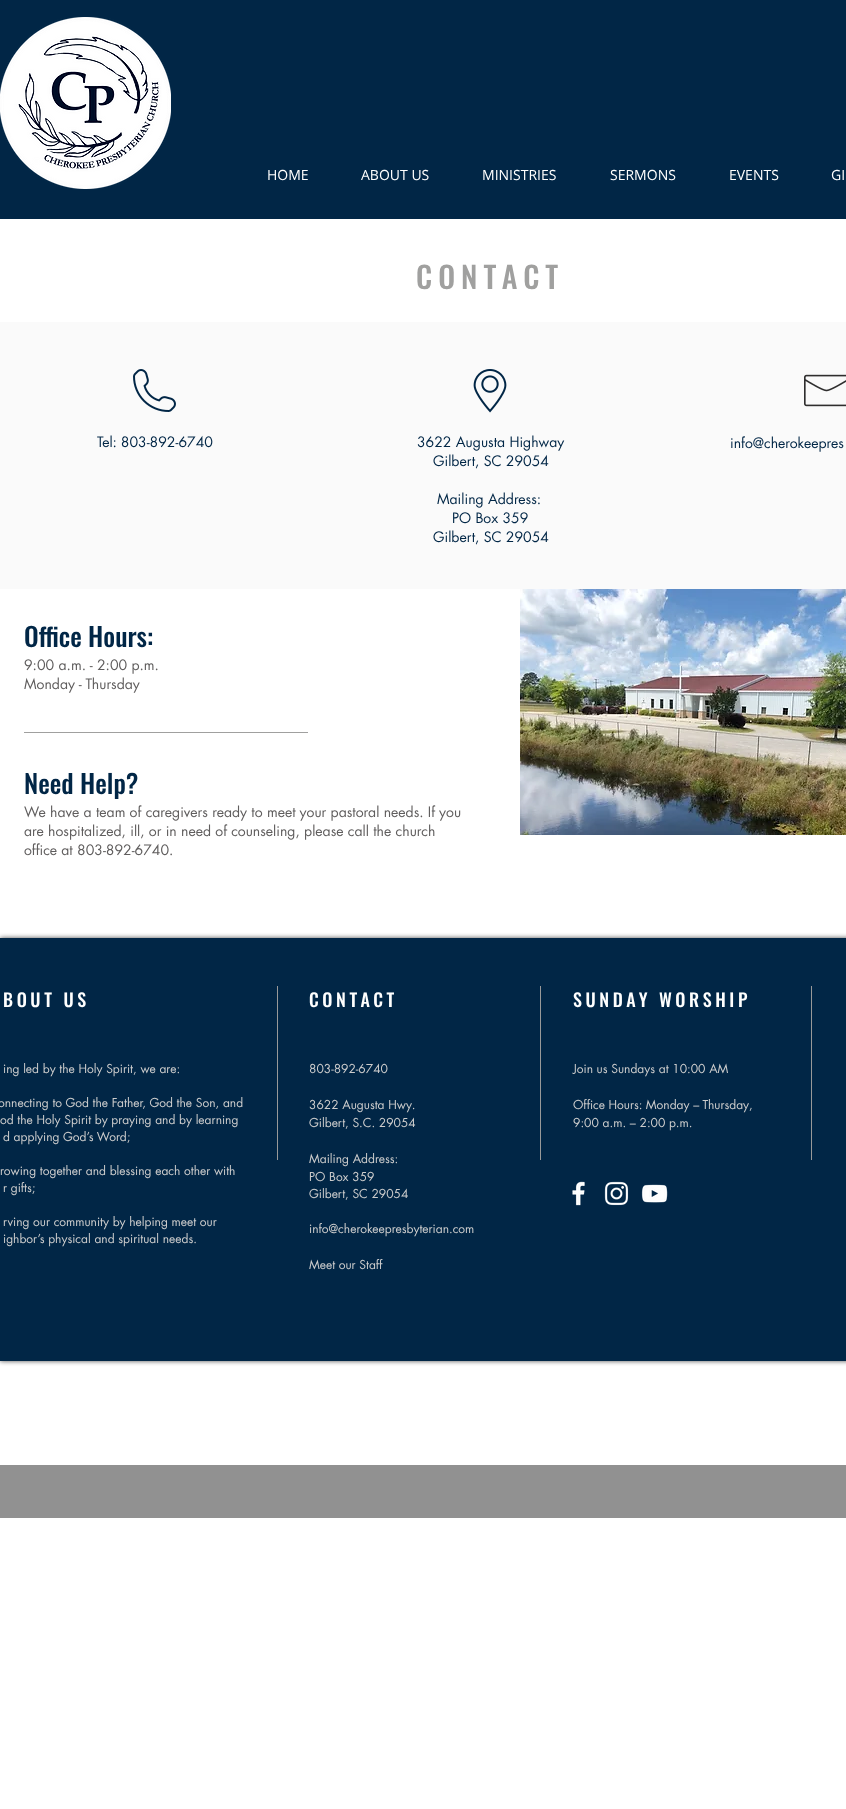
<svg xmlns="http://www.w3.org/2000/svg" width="846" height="1809">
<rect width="100%" height="100%" fill="#fff"/>
<rect width="846" height="219" fill="#012646"/>
<image x="0" y="17" width="171" height="172" href="media/1.png"/>
<text x="267" y="180" style="font-family:Open Sans;font-size:14px;fill:#fff">HOME</text>
<text x="361" y="180" style="font-family:Open Sans;font-size:14px;fill:#fff">ABOUT US</text>
<text x="482" y="180" style="font-family:Open Sans;font-size:14px;fill:#fff">MINISTRIES</text>
<text x="610" y="180" style="font-family:Open Sans;font-size:14px;fill:#fff">SERMONS</text>
<text x="729" y="180" style="font-family:Open Sans;font-size:14px;fill:#fff">EVENTS</text>
<text x="831" y="180" style="font-family:Open Sans;font-size:14px;fill:#fff">GI</text>
<text x="416" y="289" style="font-family:Oswald;font-size:30px;font-weight:500;letter-spacing:6px;fill:#a0a09f">CONTACT</text>
<rect y="322" width="846" height="267" fill="#fafafa"/>
<image x="133" y="369" width="43" height="43" href="media/2.png"/>
<image x="473" y="369" width="34" height="44" href="media/3.png"/>
<image x="804" y="374" width="42" height="33" href="media/4.png"/>
<text x="97" y="447" style="font-family:futura;font-size:14px;fill:#012646">Tel: 803-892-6740</text>
<text x="417" y="447" style="font-family:futura;font-size:14px;fill:#012646">3622 Augusta Highway</text>
<text x="433" y="466" style="font-family:futura;font-size:14px;fill:#012646">Gilbert, SC 29054</text>
<text x="437" y="504" style="font-family:futura;font-size:14px;fill:#012646">Mailing Address:</text>
<text x="452" y="523" style="font-family:futura;font-size:14px;fill:#012646">PO Box 359</text>
<text x="433" y="542" style="font-family:futura;font-size:14px;fill:#012646">Gilbert, SC 29054</text>
<text x="730" y="448" style="font-family:futura;font-size:14px;fill:#012646">info@cherokeepres</text>
<text x="24" y="647" style="font-family:Oswald;font-size:26px;font-weight:500;fill:#012646">Office Hours:</text>
<text x="24" y="670" style="font-family:futura;font-size:14px;fill:#605e5e">9:00 a.m. - 2:00 p.m.</text>
<text x="24" y="689" style="font-family:futura;font-size:14px;fill:#605e5e">Monday - Thursday</text>
<image x="520" y="589" width="326" height="246" href="media/5.png"/>
<rect x="24" y="732" width="284" height="1" fill="#a0a09f"/>
<text x="24" y="794" style="font-family:Oswald;font-size:26px;font-weight:500;fill:#012646">Need Help?</text>
<text x="24" y="817" style="font-family:futura;font-size:14px;fill:#605e5e">We have a team of caregivers ready to meet your pastoral needs. If you</text>
<text x="24" y="836" style="font-family:futura;font-size:14px;fill:#605e5e">are hospitalized, ill, or in need of counseling, please call the church</text>
<text x="24" y="855" style="font-family:futura;font-size:14px;fill:#605e5e">office at 803-892-6740.</text>
<rect y="938" width="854" height="423" fill="#000000b3" filter="blur(2.5px)"/>
<rect y="938" width="846" height="423" fill="#012646"/>
<text x="3" y="1007" style="font-family:Oswald;font-size:18px;font-weight:500;letter-spacing:3.6px;fill:#fff">BOUT US</text>
<rect x="277" y="986" width="1" height="174" fill="#999"/>
<text x="309" y="1007" style="font-family:Oswald;font-size:18px;font-weight:500;letter-spacing:3.6px;fill:#fff">CONTACT</text>
<rect x="540" y="986" width="1" height="174" fill="#999"/>
<text x="573" y="1007" style="font-family:Oswald;font-size:18px;font-weight:500;letter-spacing:3.6px;fill:#fff">SUNDAY WORSHIP</text>
<rect x="811" y="986" width="1" height="174" fill="#999"/>
<text x="3" y="1073" style="font-family:futura;font-size:12px;fill:#ccc">ing led by the Holy Spirit, we are:</text>
<text x="-2" y="1107" style="font-family:futura;font-size:12px;fill:#ccc">onnecting to God the Father, God the Son, and</text>
<text x="0" y="1124" style="font-family:futura;font-size:12px;fill:#ccc">od the Holy Spirit by praying and by learning</text>
<text x="3" y="1141" style="font-family:futura;font-size:12px;fill:#ccc">d applying God’s Word;</text>
<text x="0" y="1175" style="font-family:futura;font-size:12px;fill:#ccc">rowing together and blessing each other with</text>
<text x="3" y="1192" style="font-family:futura;font-size:12px;fill:#ccc">r gifts;</text>
<text x="3" y="1226" style="font-family:futura;font-size:12px;fill:#ccc">rving our community by helping meet our</text>
<text x="3" y="1243" style="font-family:futura;font-size:12px;fill:#ccc">ighbor’s physical and spiritual needs.</text>
<text x="309" y="1073" style="font-family:futura;font-size:12px;fill:#ccc">803-892-6740</text>
<text x="309" y="1109" style="font-family:futura;font-size:12px;fill:#ccc">3622 Augusta Hwy.</text>
<text x="309" y="1127" style="font-family:futura;font-size:12px;fill:#ccc">Gilbert, S.C. 29054</text>
<text x="309" y="1163" style="font-family:futura;font-size:12px;fill:#ccc">Mailing Address:</text>
<text x="309" y="1181" style="font-family:futura;font-size:12px;fill:#ccc">PO Box 359</text>
<text x="309" y="1198" style="font-family:futura;font-size:12px;fill:#ccc">Gilbert, SC 29054</text>
<text x="309" y="1233" style="font-family:futura;font-size:12px;fill:#ccc">info@cherokeepresbyterian.com</text>
<text x="309" y="1269" style="font-family:futura;font-size:12px;fill:#ccc">Meet our Staff</text>
<text x="573" y="1073" style="font-family:futura;font-size:12px;fill:#ccc">Join us Sundays at 10:00 AM</text>
<text x="573" y="1109" style="font-family:futura;font-size:12px;fill:#ccc">Office Hours: Monday – Thursday,</text>
<text x="573" y="1127" style="font-family:futura;font-size:12px;fill:#ccc">9:00 a.m. – 2:00 p.m.</text>
<image x="572" y="1181" width="13" height="25" href="media/6.png"/>
<image x="604" y="1181" width="25" height="25" href="media/7.png"/>
<image x="641" y="1184" width="27" height="19" href="media/8.png"/>
<rect y="1465" width="846" height="53" fill="#919191"/>
</svg>
